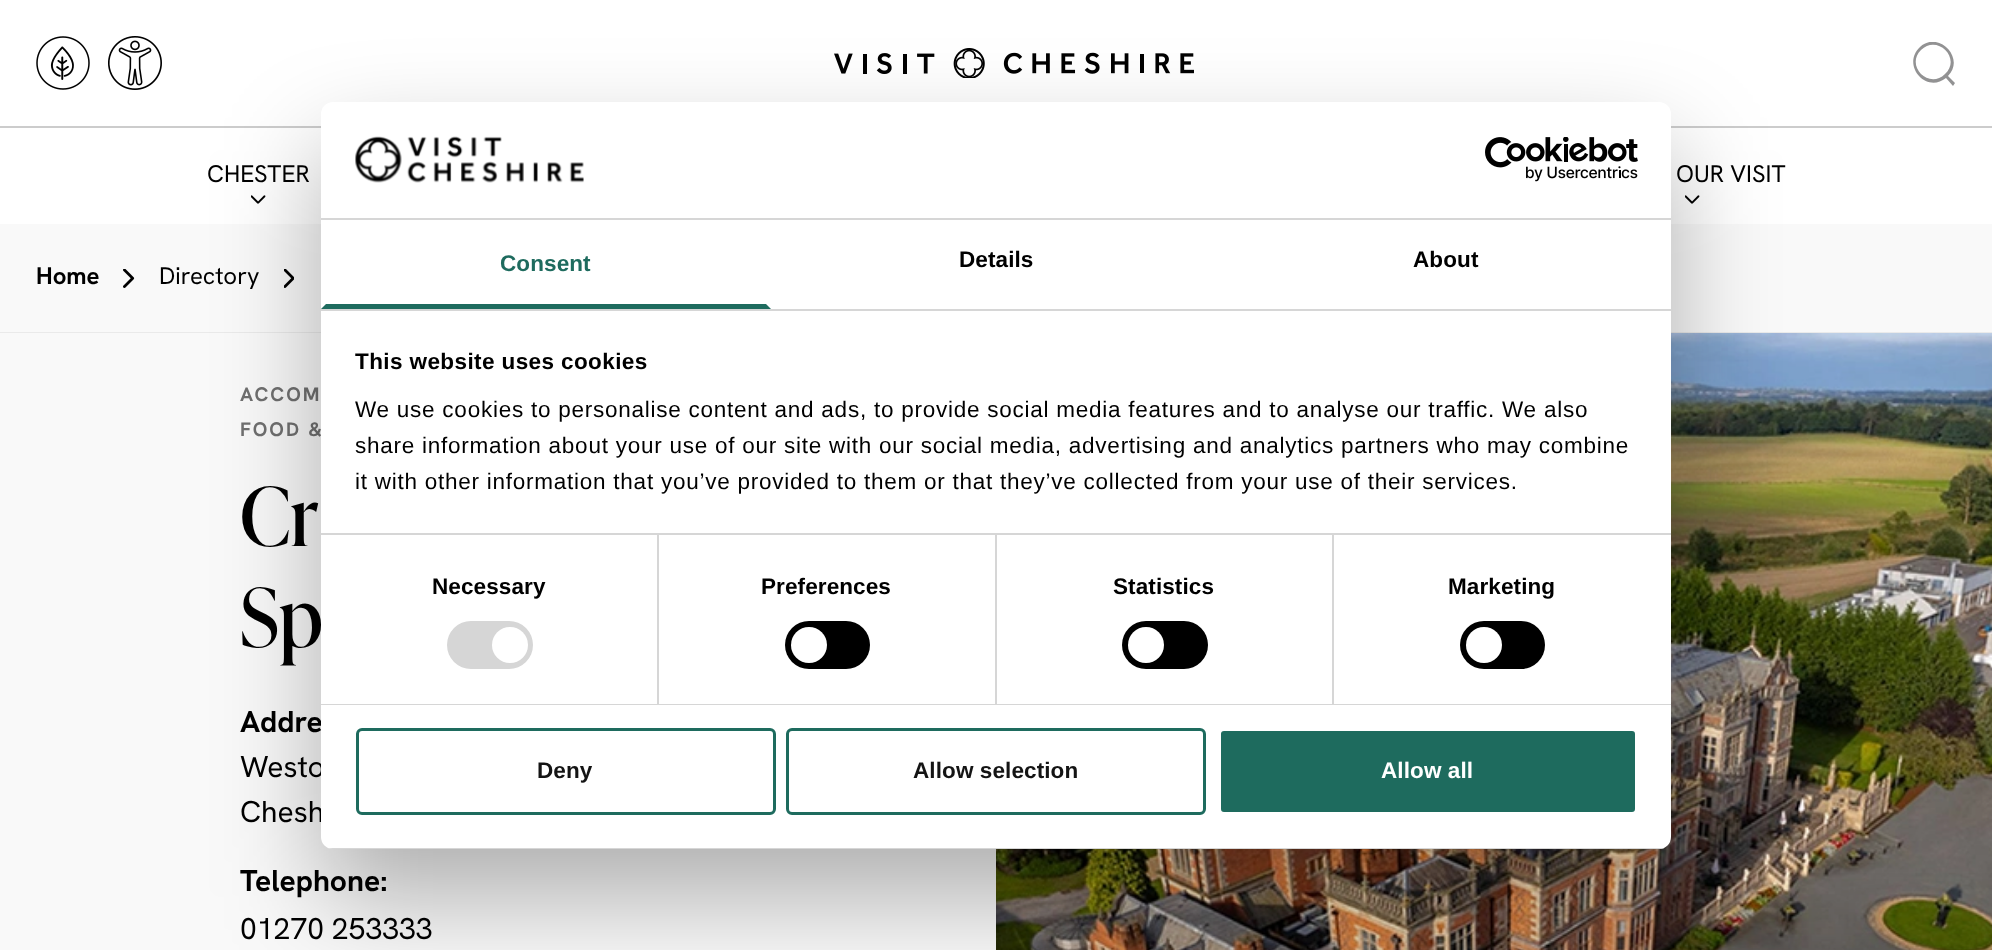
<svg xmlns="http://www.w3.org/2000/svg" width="1992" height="950">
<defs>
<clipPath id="clip1"><rect x="1913" y="42" width="43" height="44"/></clipPath>
<clipPath id="clip2"><rect x="321" y="102" width="1350" height="747" rx="12"/></clipPath>
</defs>
<rect width="100%" height="100%" fill="#fff"/>
<image x="36" y="36" width="54" height="54" href="media/1.png"/>
<image x="108" y="36" width="54" height="54" href="media/2.png"/>
<image x="834" y="48" width="360" height="30" href="media/3.png"/>
<g clip-path="url(#clip1)">
<path d="M1946 78c-20 16-45-13-26-31c18-17 46 11 28 29l7 7l-2 3zm-25-28c-16 16 8 40 24 24c17-16-8-40-24-24z" fill="#929293"/>
</g>
<rect y="126" width="1992" height="2" fill="#ccc"/>
<text x="207" y="182" style="font-family:Hanken Grotesk;font-size:24px;fill:#000">CHESTER</text>
<image x="251" y="195" width="15" height="9" href="media/4.png"/>
<text x="1676" y="182" style="font-family:Hanken Grotesk;font-size:24px;fill:#000">OUR VISIT</text>
<image x="1685" y="195" width="15" height="9" href="media/4.png"/>
<rect y="224" width="1992" height="108" fill="#f9f9f9"/>
<rect y="332" width="1992" height="1" fill="#eaeaea"/>
<text x="36" y="284" style="font-family:Hanken Grotesk;font-size:24px;font-weight:bold;fill:#000">Home</text>
<image x="123" y="269" width="12" height="19" href="media/5.png"/>
<text x="159" y="284" style="font-family:Hanken Grotesk;font-size:24px;fill:#000">Directory</text>
<image x="284" y="269" width="10" height="19" href="media/6.png"/>
<rect y="333" width="996" height="617" fill="#f9f9f9"/>
<text x="240" y="401" style="font-family:Hanken Grotesk;font-size:19.5px;font-weight:bold;letter-spacing:2px;fill:#707070">ACCOM</text>
<text x="240" y="436" style="font-family:Hanken Grotesk;font-size:19.5px;font-weight:bold;letter-spacing:2px;fill:#707070">FOOD &amp;</text>
<text x="240" y="546" style="font-family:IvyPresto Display;font-size:81px;fill:#000">Cr</text>
<text x="240" y="647" style="font-family:IvyPresto Display;font-size:81px;fill:#000">Sp</text>
<text x="240" y="732" style="font-family:Hanken Grotesk;font-size:30px;font-weight:bold;fill:#000">Addre</text>
<text x="240" y="777" style="font-family:Hanken Grotesk;font-size:30px;fill:#000">Westo</text>
<text x="240" y="822" style="font-family:Hanken Grotesk;font-size:30px;fill:#000">Chesh</text>
<text x="240" y="891" style="font-family:Hanken Grotesk;font-size:30px;font-weight:bold;fill:#000">Telephone:</text>
<text x="240" y="939" style="font-family:Hanken Grotesk;font-size:30px;fill:#000">01270 253333</text>
<image x="996" y="333" width="996" height="617" href="media/7.png"/>
<rect x="321" y="150" width="1350" height="747" rx="12" fill="#0000004d" filter="blur(51px)"/>
<rect x="321" y="102" width="1350" height="747" rx="12" fill="#fff"/>
<rect x="321" y="218" width="1350" height="2" fill="#d6d6d6"/>
<image x="355" y="136" width="229" height="47" href="media/8.png"/>
<image x="1485" y="137" width="153" height="45" href="media/9.png"/>
<rect x="321" y="309" width="1350" height="2" fill="#d6d6d6"/>
<path d="M771 309h-450l5-5h440z" fill="#1e6b5e"/>
<text x="500" y="271" style="font-family:Liberation Sans;font-size:22.5px;font-weight:bold;letter-spacing:0.1px;fill:#1e6b5e">Consent</text>
<text x="959" y="267" style="font-family:Liberation Sans;font-size:22.5px;font-weight:bold;letter-spacing:0.1px;fill:#000">Details</text>
<text x="1413" y="267" style="font-family:Liberation Sans;font-size:22.5px;font-weight:bold;letter-spacing:0.1px;fill:#000">About</text>
<rect x="657" y="534" width="2" height="170" fill="#d6d6d6"/>
<rect x="995" y="534" width="2" height="170" fill="#d6d6d6"/>
<rect x="1332" y="534" width="2" height="170" fill="#d6d6d6"/>
<rect x="321" y="533" width="1350" height="2" fill="#d6d6d6"/>
<text x="355" y="369" style="font-family:Liberation Sans;font-size:22.5px;font-weight:bold;letter-spacing:0.4px;fill:#000">This website uses cookies</text>
<text x="355" y="417" style="font-family:Liberation Sans;font-size:22.5px;letter-spacing:0.75px;fill:#000">We use cookies to personalise content and ads, to provide social media features and to analyse our traffic. We also</text>
<text x="355" y="453" style="font-family:Liberation Sans;font-size:22.5px;letter-spacing:0.75px;fill:#000">share information about your use of our site with our social media, advertising and analytics partners who may combine</text>
<text x="355" y="489" style="font-family:Liberation Sans;font-size:22.5px;letter-spacing:0.75px;fill:#000">it with other information that you’ve provided to them or that they’ve collected from your use of their services.</text>
<rect x="321" y="704" width="1350" height="1" fill="#d6d6d6"/>
<text x="432" y="594" style="font-family:Liberation Sans;font-size:22.5px;font-weight:bold;letter-spacing:0.1px;fill:#000">Necessary</text>
<rect x="447" y="621" width="86" height="48" rx="24" fill="#d6d6d6"/>
<circle cx="510" cy="645" r="18" fill="#fff"/>
<text x="761" y="594" style="font-family:Liberation Sans;font-size:22.5px;font-weight:bold;letter-spacing:0.1px;fill:#000">Preferences</text>
<rect x="785" y="621" width="85" height="48" rx="24" fill="#000"/>
<circle cx="809" cy="645" r="18" fill="#fff"/>
<text x="1113" y="594" style="font-family:Liberation Sans;font-size:22.5px;font-weight:bold;letter-spacing:0.1px;fill:#000">Statistics</text>
<rect x="1122" y="621" width="86" height="48" rx="24" fill="#000"/>
<circle cx="1146" cy="645" r="18" fill="#fff"/>
<text x="1448" y="594" style="font-family:Liberation Sans;font-size:22.5px;font-weight:bold;letter-spacing:0.1px;fill:#000">Marketing</text>
<rect x="1460" y="621" width="85" height="48" rx="24" fill="#000"/>
<circle cx="1484" cy="645" r="18" fill="#fff"/>
<g clip-path="url(#clip2)">
<rect x="321" y="848" width="1350" height="1" fill="#d6d6d6"/>
</g>
<rect x="357.5" y="729.5" width="417" height="84" rx="4.5" fill="none" stroke="#1e6b5e" stroke-width="3"/>
<text x="537" y="778" style="font-family:Liberation Sans;font-size:22.5px;font-weight:bold;letter-spacing:0.1px;fill:#141414">Deny</text>
<rect x="787.5" y="729.5" width="417" height="84" rx="4.5" fill="none" stroke="#1e6b5e" stroke-width="3"/>
<text x="913" y="778" style="font-family:Liberation Sans;font-size:22.5px;font-weight:bold;letter-spacing:0.1px;fill:#141414">Allow selection</text>
<rect x="1219.5" y="729.5" width="417" height="84" rx="4.5" fill="#1e6b5e" stroke="#fff" stroke-width="3"/>
<text x="1381" y="778" style="font-family:Liberation Sans;font-size:22.5px;font-weight:bold;letter-spacing:0.1px;fill:#fff">Allow all</text>
</svg>
